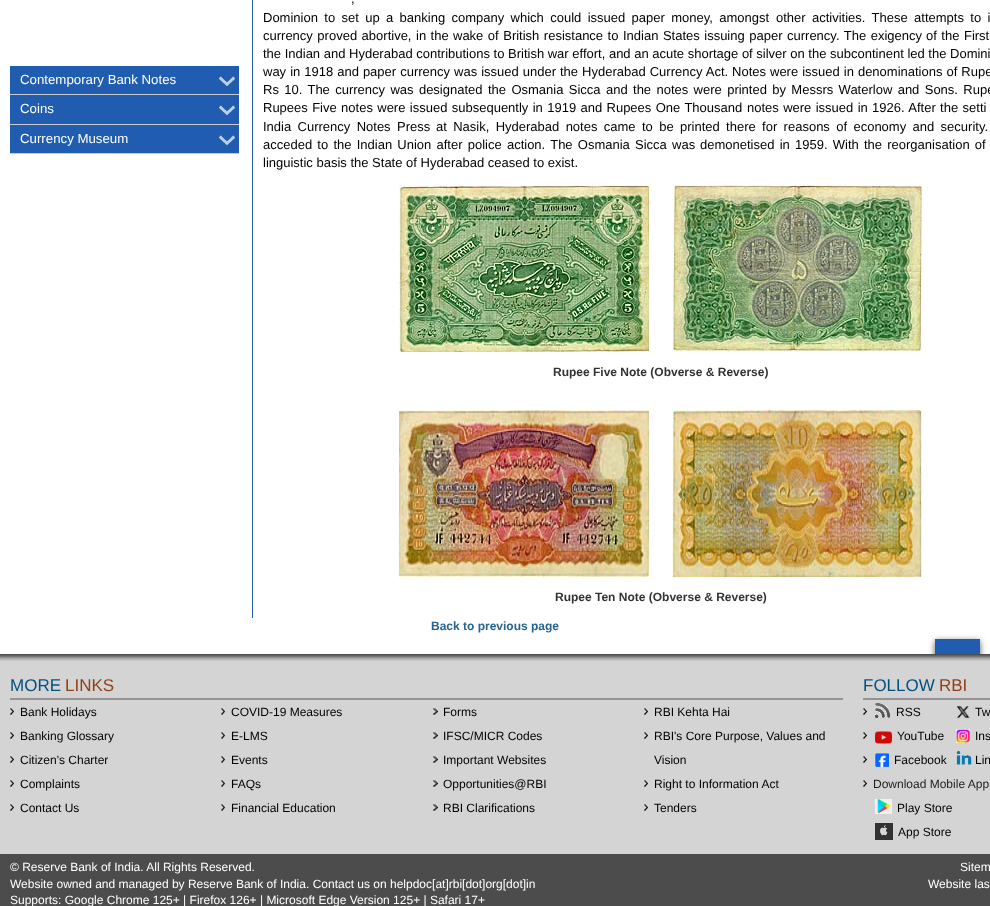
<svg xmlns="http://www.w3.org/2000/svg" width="990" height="906">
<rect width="100%" height="100%" fill="#fff"/>
<rect x="10" y="66" width="229" height="28" fill="#205db1"/>
<image x="219" y="76" width="16" height="10" href="media/1.png"/>
<rect x="10" y="94" width="229" height="1" fill="#ccc"/>
<text x="20" y="84" style="font-family:Liberation Sans;font-size:13.25px;fill:#fff">Contemporary Bank Notes</text>
<rect x="10" y="95" width="229" height="29" fill="#205db1"/>
<image x="219" y="105" width="16" height="10" href="media/1.png"/>
<rect x="10" y="124" width="229" height="1" fill="#ccc"/>
<text x="20" y="113" style="font-family:Liberation Sans;font-size:13.25px;fill:#fff">Coins</text>
<rect x="10" y="125" width="229" height="28" fill="#205db1"/>
<image x="219" y="135" width="16" height="10" href="media/1.png"/>
<rect x="10" y="153" width="229" height="1" fill="#ccc"/>
<text x="20" y="143" style="font-family:Liberation Sans;font-size:13.25px;fill:#fff">Currency Museum</text>
<rect x="252" width="1" height="618" fill="#205db1"/>
<text x="351" y="3" word-spacing="1" style="font-family:Liberation Sans;font-size:13px;fill:#000">,</text>
<text x="263" y="22" word-spacing="2.75" style="font-family:Liberation Sans;font-size:13px;fill:#000">Dominion to set up a banking company which could issued paper money, amongst</text>
<text x="776" y="22" word-spacing="2.75" style="font-family:Liberation Sans;font-size:13px;fill:#000">other activities. These attempts to i</text>
<text x="263" y="40" word-spacing="0.9" style="font-family:Liberation Sans;font-size:13px;fill:#000">currency proved abortive, in the</text>
<text x="453" y="40" word-spacing="0.9" style="font-family:Liberation Sans;font-size:13px;fill:#000">wake of British resistance to Indian States issuing paper currency. The exigency</text>
<text x="926" y="40" word-spacing="0.9" style="font-family:Liberation Sans;font-size:13px;fill:#000">of the First</text>
<text x="263" y="58" style="font-family:Liberation Sans;font-size:13px;fill:#000">the Indian and Hyderabad contributions to British war effort, and an acute shortage of silver on the subcontinent led the Domini</text>
<text x="263" y="76" word-spacing="0.4" style="font-family:Liberation Sans;font-size:13px;fill:#000">way in 1918 and paper currency was issued under the Hyderabad Currency Act. Notes</text>
<text x="770" y="76" word-spacing="0.4" style="font-family:Liberation Sans;font-size:13px;fill:#000">were issued in denominations of Rupe</text>
<text x="263" y="94" word-spacing="1.75" style="font-family:Liberation Sans;font-size:13px;fill:#000">Rs 10. The currency was designated</text>
<text x="488" y="94" word-spacing="1.75" style="font-family:Liberation Sans;font-size:13px;fill:#000">the Osmania Sicca and the notes were printed by Messrs Waterlow and Sons. Rupe</text>
<text x="263" y="112" word-spacing="0.75" style="font-family:Liberation Sans;font-size:13px;fill:#000">Rupees Five notes were issued subsequently in 1919 and Rupees One Thousand</text>
<text x="747" y="112" word-spacing="0.75" style="font-family:Liberation Sans;font-size:13px;fill:#000">notes were issued in 1926. After the setti</text>
<text x="263" y="131" word-spacing="2.75" style="font-family:Liberation Sans;font-size:13px;fill:#000">India Currency Notes Press</text>
<text x="436" y="131" word-spacing="2.75" style="font-family:Liberation Sans;font-size:13px;fill:#000">at Nasik, Hyderabad notes came to be printed there for reasons of economy and security.</text>
<text x="263" y="149" word-spacing="1.6" style="font-family:Liberation Sans;font-size:13px;fill:#000">acceded to the Indian Union after police action. The Osmania Sicca was</text>
<text x="700" y="149" word-spacing="1.6" style="font-family:Liberation Sans;font-size:13px;fill:#000">demonetised in 1959. With the reorganisation of</text>
<text x="263" y="167" style="font-family:Liberation Sans;font-size:13px;fill:#000">linguistic basis the State of Hyderabad ceased to exist.</text>
<image x="399" y="185" width="250" height="167" href="media/2.png"/>
<image x="672" y="185" width="250" height="167" href="media/3.png"/>
<text x="553" y="376" style="font-family:Liberation Sans;font-size:12px;font-weight:bold;fill:#333">Rupee Five Note (Obverse &amp; Reverse)</text>
<image x="399" y="410" width="250" height="167" href="media/4.png"/>
<image x="672" y="410" width="250" height="167" href="media/5.png"/>
<text x="555" y="601" style="font-family:Liberation Sans;font-size:12px;font-weight:bold;fill:#333">Rupee Ten Note (Obverse &amp; Reverse)</text>
<text x="431" y="630" style="font-family:Liberation Sans;font-size:12px;font-weight:bold;fill:#266491">Back to previous page</text>
<rect x="935" y="641" width="45" height="41" fill="#000000a6" filter="blur(3px)"/>
<rect x="935" y="639" width="45" height="15" fill="#205db1"/>
<rect y="661" width="990" height="193" fill="#d4d4d4"/>
<image x="0" y="654" width="990" height="7" href="media/6.png"/>
<rect x="10" y="698" width="833" height="2" fill="#949494"/>
<text x="10" y="691" style="font-family:Liberation Sans;font-size:17px;fill:#02517f">MORE</text>
<text x="65" y="691" style="font-family:Liberation Sans;font-size:17px;fill:#923f17">LINKS</text>
<image x="10" y="708" width="4" height="7" href="media/7.png"/>
<text x="20" y="716" style="font-family:Liberation Sans;font-size:12px;fill:#000">Bank Holidays</text>
<image x="221" y="708" width="4" height="7" href="media/7.png"/>
<text x="231" y="716" style="font-family:Liberation Sans;font-size:12px;fill:#000">COVID-19 Measures</text>
<image x="433" y="708" width="5" height="7" href="media/8.png"/>
<text x="443" y="716" style="font-family:Liberation Sans;font-size:12px;fill:#000">Forms</text>
<image x="644" y="708" width="4" height="7" href="media/7.png"/>
<text x="654" y="716" style="font-family:Liberation Sans;font-size:12px;fill:#000">RBI Kehta Hai</text>
<image x="10" y="732" width="4" height="7" href="media/7.png"/>
<text x="20" y="740" style="font-family:Liberation Sans;font-size:12px;fill:#000">Banking Glossary</text>
<image x="221" y="732" width="4" height="7" href="media/7.png"/>
<text x="231" y="740" style="font-family:Liberation Sans;font-size:12px;fill:#000">E-LMS</text>
<image x="433" y="732" width="5" height="7" href="media/8.png"/>
<text x="443" y="740" style="font-family:Liberation Sans;font-size:12px;fill:#000">IFSC/MICR Codes</text>
<image x="644" y="732" width="4" height="7" href="media/7.png"/>
<text x="654" y="740" style="font-family:Liberation Sans;font-size:12px;fill:#000">RBI's Core Purpose, Values and</text>
<text x="654" y="764" style="font-family:Liberation Sans;font-size:12px;fill:#000">Vision</text>
<image x="10" y="756" width="4" height="7" href="media/7.png"/>
<text x="20" y="764" style="font-family:Liberation Sans;font-size:12px;fill:#000">Citizen's Charter</text>
<image x="221" y="756" width="4" height="7" href="media/7.png"/>
<text x="231" y="764" style="font-family:Liberation Sans;font-size:12px;fill:#000">Events</text>
<image x="433" y="756" width="5" height="7" href="media/8.png"/>
<text x="443" y="764" style="font-family:Liberation Sans;font-size:12px;fill:#000">Important Websites</text>
<image x="10" y="780" width="4" height="7" href="media/7.png"/>
<text x="20" y="788" style="font-family:Liberation Sans;font-size:12px;fill:#000">Complaints</text>
<image x="221" y="780" width="4" height="7" href="media/7.png"/>
<text x="231" y="788" style="font-family:Liberation Sans;font-size:12px;fill:#000">FAQs</text>
<image x="433" y="780" width="5" height="7" href="media/8.png"/>
<text x="443" y="788" style="font-family:Liberation Sans;font-size:12px;fill:#000">Opportunities@RBI</text>
<image x="644" y="780" width="4" height="7" href="media/7.png"/>
<text x="654" y="788" style="font-family:Liberation Sans;font-size:12px;fill:#000">Right to Information Act</text>
<image x="10" y="804" width="4" height="7" href="media/7.png"/>
<text x="20" y="812" style="font-family:Liberation Sans;font-size:12px;fill:#000">Contact Us</text>
<image x="221" y="804" width="4" height="7" href="media/7.png"/>
<text x="231" y="812" style="font-family:Liberation Sans;font-size:12px;fill:#000">Financial Education</text>
<image x="433" y="804" width="5" height="7" href="media/8.png"/>
<text x="443" y="812" style="font-family:Liberation Sans;font-size:12px;fill:#000">RBI Clarifications</text>
<image x="644" y="804" width="4" height="7" href="media/7.png"/>
<text x="654" y="812" style="font-family:Liberation Sans;font-size:12px;fill:#000">Tenders</text>
<rect x="863" y="698" width="127" height="2" fill="#949494"/>
<text x="863" y="691" style="font-family:Liberation Sans;font-size:17px;fill:#02517f">FOLLOW</text>
<text x="939" y="691" style="font-family:Liberation Sans;font-size:17px;fill:#923f17">RBI</text>
<image x="875" y="703" width="15" height="15" href="media/9.png"/>
<text x="896" y="716" style="font-family:Liberation Sans;font-size:12px;fill:#000">RSS</text>
<image x="863" y="708" width="4" height="7" href="media/7.png"/>
<image x="956" y="706" width="14" height="13" href="media/10.png"/>
<text x="975" y="716" style="font-family:Liberation Sans;font-size:12px;fill:#000">Tw</text>
<image x="875" y="731" width="17" height="13" href="media/11.png"/>
<text x="897" y="740" style="font-family:Liberation Sans;font-size:12px;fill:#000">YouTube</text>
<image x="863" y="732" width="4" height="7" href="media/7.png"/>
<image x="956" y="729" width="14" height="14" href="media/12.png"/>
<text x="975" y="740" style="font-family:Liberation Sans;font-size:12px;fill:#000">Ins</text>
<image x="875" y="753" width="14" height="14" href="media/13.png"/>
<text x="894" y="764" style="font-family:Liberation Sans;font-size:12px;fill:#000">Facebook</text>
<image x="863" y="756" width="4" height="7" href="media/7.png"/>
<image x="956" y="751" width="16" height="14" href="media/14.png"/>
<text x="975" y="764" style="font-family:Liberation Sans;font-size:12px;fill:#000">Lin</text>
<image x="863" y="780" width="4" height="7" href="media/7.png"/>
<text x="873" y="788" style="font-family:Liberation Sans;font-size:12px;fill:#222">Download Mobile App</text>
<image x="875" y="799" width="17" height="15" href="media/15.png"/>
<text x="897" y="812" style="font-family:Liberation Sans;font-size:12px;fill:#000">Play Store</text>
<image x="875" y="823" width="18" height="17" href="media/16.png"/>
<text x="898" y="836" style="font-family:Liberation Sans;font-size:12px;fill:#000">App Store</text>
<rect y="854" width="990" height="52" fill="#4c4c4c"/>
<text x="10" y="871" style="font-family:Liberation Sans;font-size:12px;fill:#fff">© Reserve Bank of India. All Rights Reserved.</text>
<text x="960" y="871" style="font-family:Liberation Sans;font-size:12px;fill:#fff">Sitem</text>
<text x="10" y="888" style="font-family:Liberation Sans;font-size:12px;fill:#fff">Website owned and managed by Reserve Bank of India. Contact us on helpdoc[at]rbi[dot]org[dot]in</text>
<text x="928" y="888" style="font-family:Liberation Sans;font-size:12px;fill:#fff">Website las</text>
<text x="10" y="904" style="font-family:Liberation Sans;font-size:12px;fill:#fff">Supports: Google Chrome 125+ | Firefox 126+ | Microsoft Edge Version 125+ | Safari 17+</text>
</svg>
